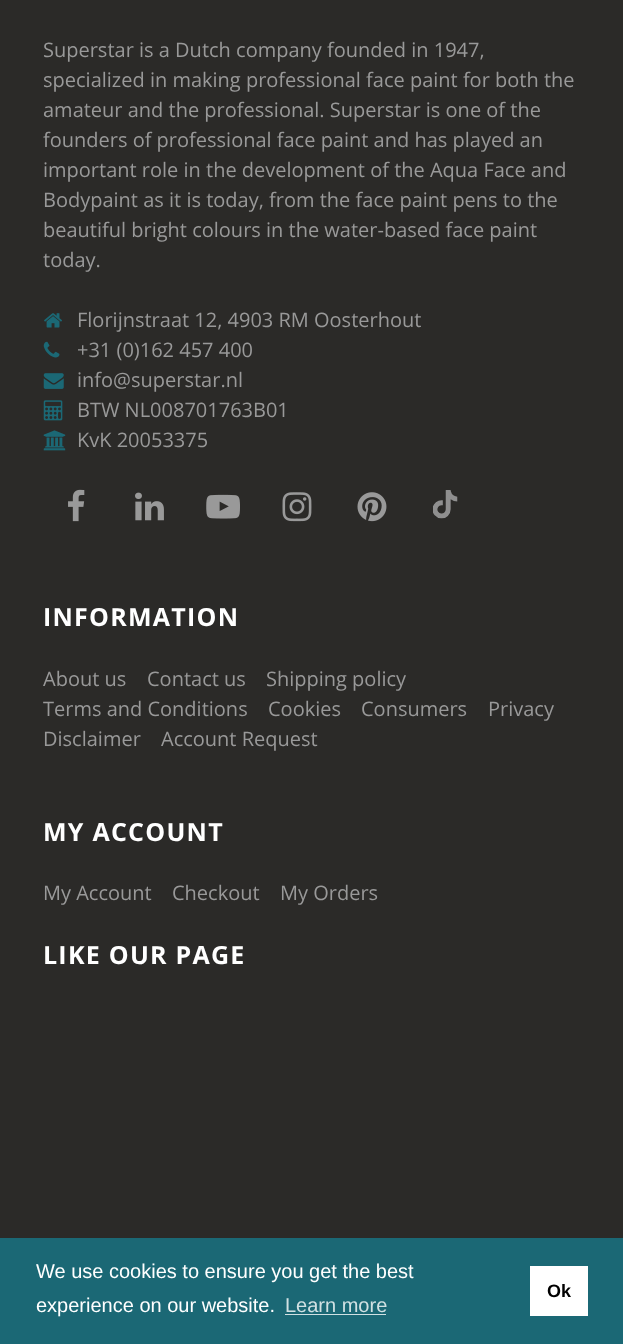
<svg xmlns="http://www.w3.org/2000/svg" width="623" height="1344">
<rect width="100%" height="100%" fill="#2b2a28"/>
<text x="43" y="57" style="font-family:Open Sans;font-size:20px;fill:#999">Superstar is a Dutch company founded in 1947,</text>
<text x="43" y="87" style="font-family:Open Sans;font-size:20px;fill:#999">specialized in making professional face paint for both the</text>
<text x="43" y="117" style="font-family:Open Sans;font-size:20px;fill:#999">amateur and the professional. Superstar is one of the</text>
<text x="43" y="147" style="font-family:Open Sans;font-size:20px;fill:#999">founders of professional face paint and has played an</text>
<text x="43" y="177" style="font-family:Open Sans;font-size:20px;fill:#999">important role in the development of the Aqua Face and</text>
<text x="43" y="207" style="font-family:Open Sans;font-size:20px;fill:#999">Bodypaint as it is today, from the face paint pens to the</text>
<text x="43" y="237" style="font-family:Open Sans;font-size:20px;fill:#999">beautiful bright colours in the water-based face paint</text>
<text x="43" y="267" style="font-family:Open Sans;font-size:20px;fill:#999">today.</text>
<image x="44" y="313" width="18" height="15" href="media/1.png"/>
<text x="77" y="327" style="font-family:Open Sans;font-size:20px;fill:#999">Florijnstraat 12, 4903 RM Oosterhout</text>
<image x="43" y="341" width="17" height="17" href="media/2.png"/>
<text x="77" y="357" style="font-family:Open Sans;font-size:20px;fill:#999">+31 (0)162 457 400</text>
<image x="43" y="373" width="21" height="16" href="media/3.png"/>
<text x="77" y="387" style="font-family:Open Sans;font-size:20px;fill:#999">info@superstar.nl</text>
<image x="43" y="400" width="20" height="21" href="media/4.png"/>
<text x="77" y="417" style="font-family:Open Sans;font-size:20px;fill:#999">BTW NL008701763B01</text>
<image x="43" y="430" width="23" height="21" href="media/5.png"/>
<text x="77" y="447" style="font-family:Open Sans;font-size:20px;fill:#999">KvK 20053375</text>
<image x="68" y="489" width="17" height="33" href="media/6.png"/>
<image x="135" y="492" width="29" height="29" href="media/7.png"/>
<image x="206" y="494" width="34" height="25" href="media/8.png"/>
<image x="282" y="492" width="30" height="30" href="media/9.png"/>
<image x="357" y="492" width="30" height="30" href="media/10.png"/>
<image x="433" y="490" width="25" height="29" href="media/11.png"/>
<text x="43" y="626" style="font-family:Open Sans;font-size:25px;font-weight:bold;letter-spacing:1.25px;fill:#fff">INFORMATION</text>
<text x="43" y="686" style="font-family:Open Sans;font-size:20px;fill:#999">About us</text>
<text x="147" y="686" style="font-family:Open Sans;font-size:20px;fill:#999">Contact us</text>
<text x="266" y="686" style="font-family:Open Sans;font-size:20px;fill:#999">Shipping policy</text>
<text x="43" y="716" style="font-family:Open Sans;font-size:20px;fill:#999">Terms and Conditions</text>
<text x="268" y="716" style="font-family:Open Sans;font-size:20px;fill:#999">Cookies</text>
<text x="361" y="716" style="font-family:Open Sans;font-size:20px;fill:#999">Consumers</text>
<text x="488" y="716" style="font-family:Open Sans;font-size:20px;fill:#999">Privacy</text>
<text x="43" y="746" style="font-family:Open Sans;font-size:20px;fill:#999">Disclaimer</text>
<text x="161" y="746" style="font-family:Open Sans;font-size:20px;fill:#999">Account Request</text>
<text x="43" y="841" style="font-family:Open Sans;font-size:25px;font-weight:bold;letter-spacing:1.25px;fill:#fff">MY ACCOUNT</text>
<text x="43" y="900" style="font-family:Open Sans;font-size:20px;fill:#999">My Account</text>
<text x="172" y="900" style="font-family:Open Sans;font-size:20px;fill:#999">Checkout</text>
<text x="280" y="900" style="font-family:Open Sans;font-size:20px;fill:#999">My Orders</text>
<text x="43" y="964" style="font-family:Open Sans;font-size:25px;font-weight:bold;letter-spacing:1.25px;fill:#fff">LIKE OUR PAGE</text>
<rect y="1238" width="623" height="106" fill="#1b6875"/>
<text x="36" y="1278" style="font-family:Liberation Sans;font-size:20px;fill:#fff">We use cookies to ensure you get the best</text>
<text x="36" y="1312" style="font-family:Liberation Sans;font-size:20px;fill:#fff">experience on our website.</text>
<text x="285" y="1312" style="font-family:Liberation Sans;font-size:20px;fill:#d1e1e3">Learn more</text>
<rect x="285" y="1314" width="101" height="1" fill="#d1e1e3"/>
<rect x="530" y="1266" width="58" height="50" fill="#fff"/>
<text x="547" y="1297" style="font-family:Liberation Sans;font-size:18px;font-weight:bold;fill:#000">Ok</text>
</svg>
